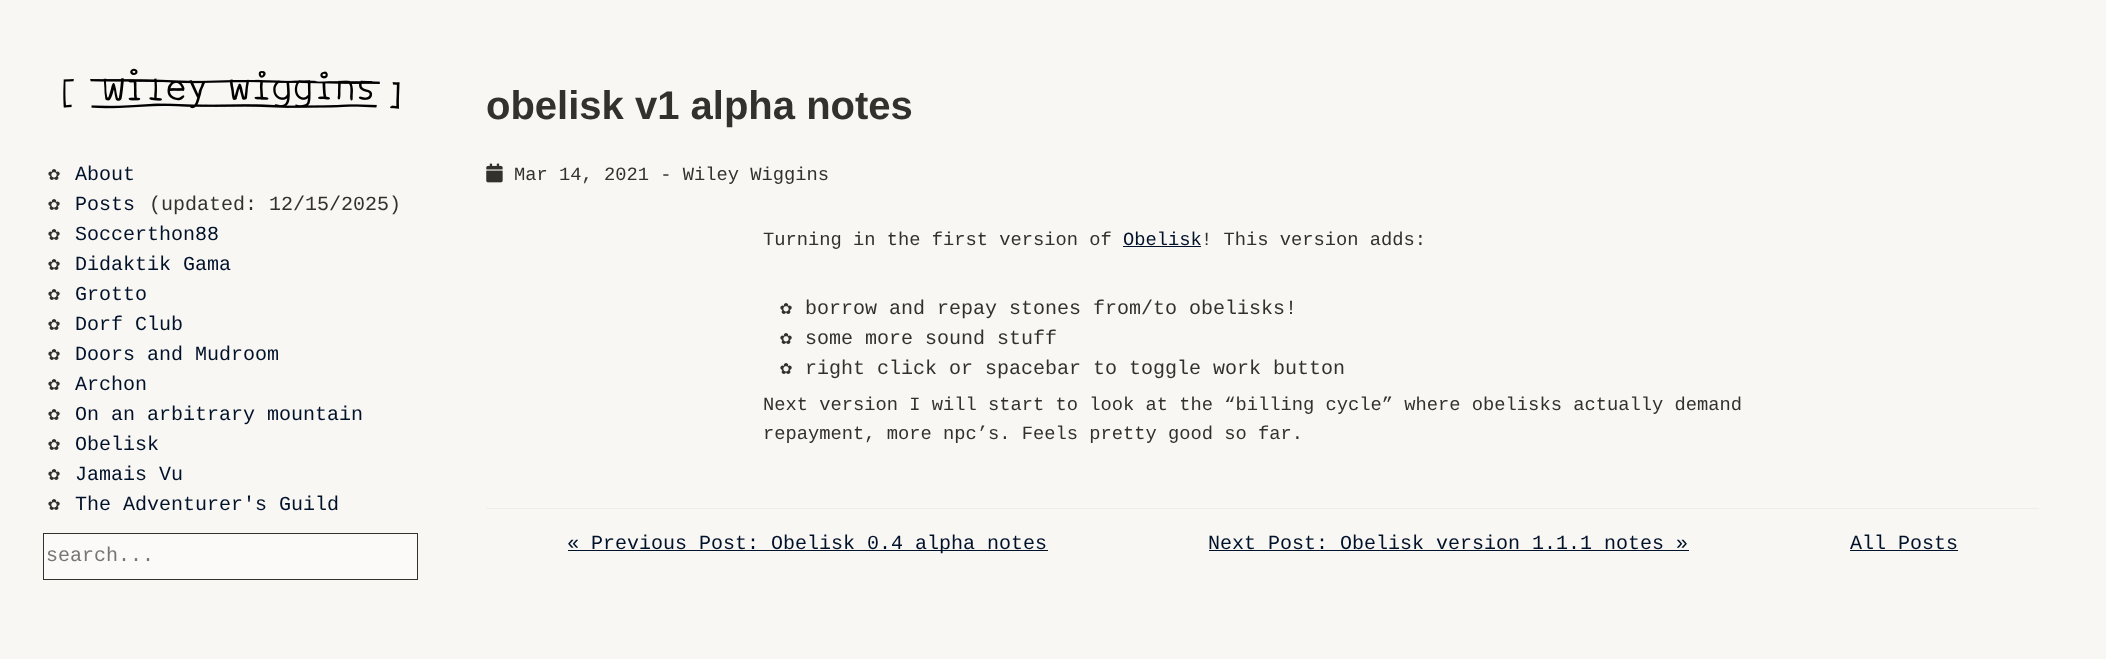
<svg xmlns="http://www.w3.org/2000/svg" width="2106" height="659">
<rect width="100%" height="100%" fill="#f9f7f3"/>
<image x="63" y="68" width="337" height="41" href="media/1.png"/>
<text x="48" y="180" style="font-family:DejaVu Sans Mono;font-size:20px;fill:#33312b">✿</text>
<text x="75" y="180" style="font-family:Liberation Mono;font-size:20px;fill:#00112a">About</text>
<text x="48" y="210" style="font-family:DejaVu Sans Mono;font-size:20px;fill:#33312b">✿</text>
<text x="75" y="210" style="font-family:Liberation Mono;font-size:20px;fill:#00112a">Posts</text>
<text x="149" y="210" style="font-family:Liberation Mono;font-size:20px;fill:#33312b">(updated: 12/15/2025)</text>
<text x="48" y="240" style="font-family:DejaVu Sans Mono;font-size:20px;fill:#33312b">✿</text>
<text x="75" y="240" style="font-family:Liberation Mono;font-size:20px;fill:#00112a">Soccerthon88</text>
<text x="48" y="270" style="font-family:DejaVu Sans Mono;font-size:20px;fill:#33312b">✿</text>
<text x="75" y="270" style="font-family:Liberation Mono;font-size:20px;fill:#00112a">Didaktik Gama</text>
<text x="48" y="300" style="font-family:DejaVu Sans Mono;font-size:20px;fill:#33312b">✿</text>
<text x="75" y="300" style="font-family:Liberation Mono;font-size:20px;fill:#00112a">Grotto</text>
<text x="48" y="330" style="font-family:DejaVu Sans Mono;font-size:20px;fill:#33312b">✿</text>
<text x="75" y="330" style="font-family:Liberation Mono;font-size:20px;fill:#00112a">Dorf Club</text>
<text x="48" y="360" style="font-family:DejaVu Sans Mono;font-size:20px;fill:#33312b">✿</text>
<text x="75" y="360" style="font-family:Liberation Mono;font-size:20px;fill:#00112a">Doors and Mudroom</text>
<text x="48" y="390" style="font-family:DejaVu Sans Mono;font-size:20px;fill:#33312b">✿</text>
<text x="75" y="390" style="font-family:Liberation Mono;font-size:20px;fill:#00112a">Archon</text>
<text x="48" y="420" style="font-family:DejaVu Sans Mono;font-size:20px;fill:#33312b">✿</text>
<text x="75" y="420" style="font-family:Liberation Mono;font-size:20px;fill:#00112a">On an arbitrary mountain</text>
<text x="48" y="450" style="font-family:DejaVu Sans Mono;font-size:20px;fill:#33312b">✿</text>
<text x="75" y="450" style="font-family:Liberation Mono;font-size:20px;fill:#00112a">Obelisk</text>
<text x="48" y="480" style="font-family:DejaVu Sans Mono;font-size:20px;fill:#33312b">✿</text>
<text x="75" y="480" style="font-family:Liberation Mono;font-size:20px;fill:#00112a">Jamais Vu</text>
<text x="48" y="510" style="font-family:DejaVu Sans Mono;font-size:20px;fill:#33312b">✿</text>
<text x="75" y="510" style="font-family:Liberation Mono;font-size:20px;fill:#00112a">The Adventurer's Guild</text>
<rect x="43.5" y="533.5" width="374" height="46" fill="#fbfaf8" stroke="#33312b"/>
<text x="46" y="561" style="font-family:Liberation Mono;font-size:20px;fill:#757575">search...</text>
<text x="486" y="119" style="font-family:Liberation Sans;font-size:40px;font-weight:bold;fill:#33312b">obelisk v1 alpha notes</text>
<image x="486" y="163" width="17" height="20" href="media/2.png"/>
<text x="514" y="180" style="font-family:Liberation Mono;font-size:18.75px;fill:#33312b">Mar 14, 2021 - Wiley Wiggins</text>
<text x="763" y="245" style="font-family:Liberation Mono;font-size:18.75px;fill:#33312b">Turning in the first version of</text>
<text x="1123" y="245" style="font-family:Liberation Mono;font-size:18.75px;fill:#00112a">Obelisk</text>
<rect x="1123" y="246" width="78" height="1" fill="#00112a"/>
<text x="1201" y="245" style="font-family:Liberation Mono;font-size:18.75px;fill:#33312b">! This version adds:</text>
<text x="780" y="314" style="font-family:DejaVu Sans Mono;font-size:20px;fill:#33312b">✿</text>
<text x="805" y="314" style="font-family:Liberation Mono;font-size:20px;fill:#33312b">borrow and repay stones from/to obelisks!</text>
<text x="780" y="344" style="font-family:DejaVu Sans Mono;font-size:20px;fill:#33312b">✿</text>
<text x="805" y="344" style="font-family:Liberation Mono;font-size:20px;fill:#33312b">some more sound stuff</text>
<text x="780" y="374" style="font-family:DejaVu Sans Mono;font-size:20px;fill:#33312b">✿</text>
<text x="805" y="374" style="font-family:Liberation Mono;font-size:20px;fill:#33312b">right click or spacebar to toggle work button</text>
<text x="763" y="410" style="font-family:Liberation Mono;font-size:18.75px;fill:#33312b">Next version I will start to look at the “billing cycle” where obelisks actually demand</text>
<text x="763" y="439" style="font-family:Liberation Mono;font-size:18.75px;fill:#33312b">repayment, more npc’s. Feels pretty good so far.</text>
<rect x="486" y="508" width="1553" height="1" fill="#eee"/>
<rect x="568" y="550" width="480" height="1" fill="#00112a"/>
<text x="567" y="549" style="font-family:Liberation Mono;font-size:20px;fill:#00112a">« Previous Post: Obelisk 0.4 alpha notes</text>
<text x="1208" y="549" style="font-family:Liberation Mono;font-size:20px;fill:#00112a">Next Post: Obelisk version 1.1.1 notes »</text>
<rect x="1209" y="550" width="480" height="1" fill="#00112a"/>
<text x="1850" y="549" style="font-family:Liberation Mono;font-size:20px;fill:#00112a">All Posts</text>
<rect x="1850" y="550" width="108" height="1" fill="#00112a"/>
</svg>
